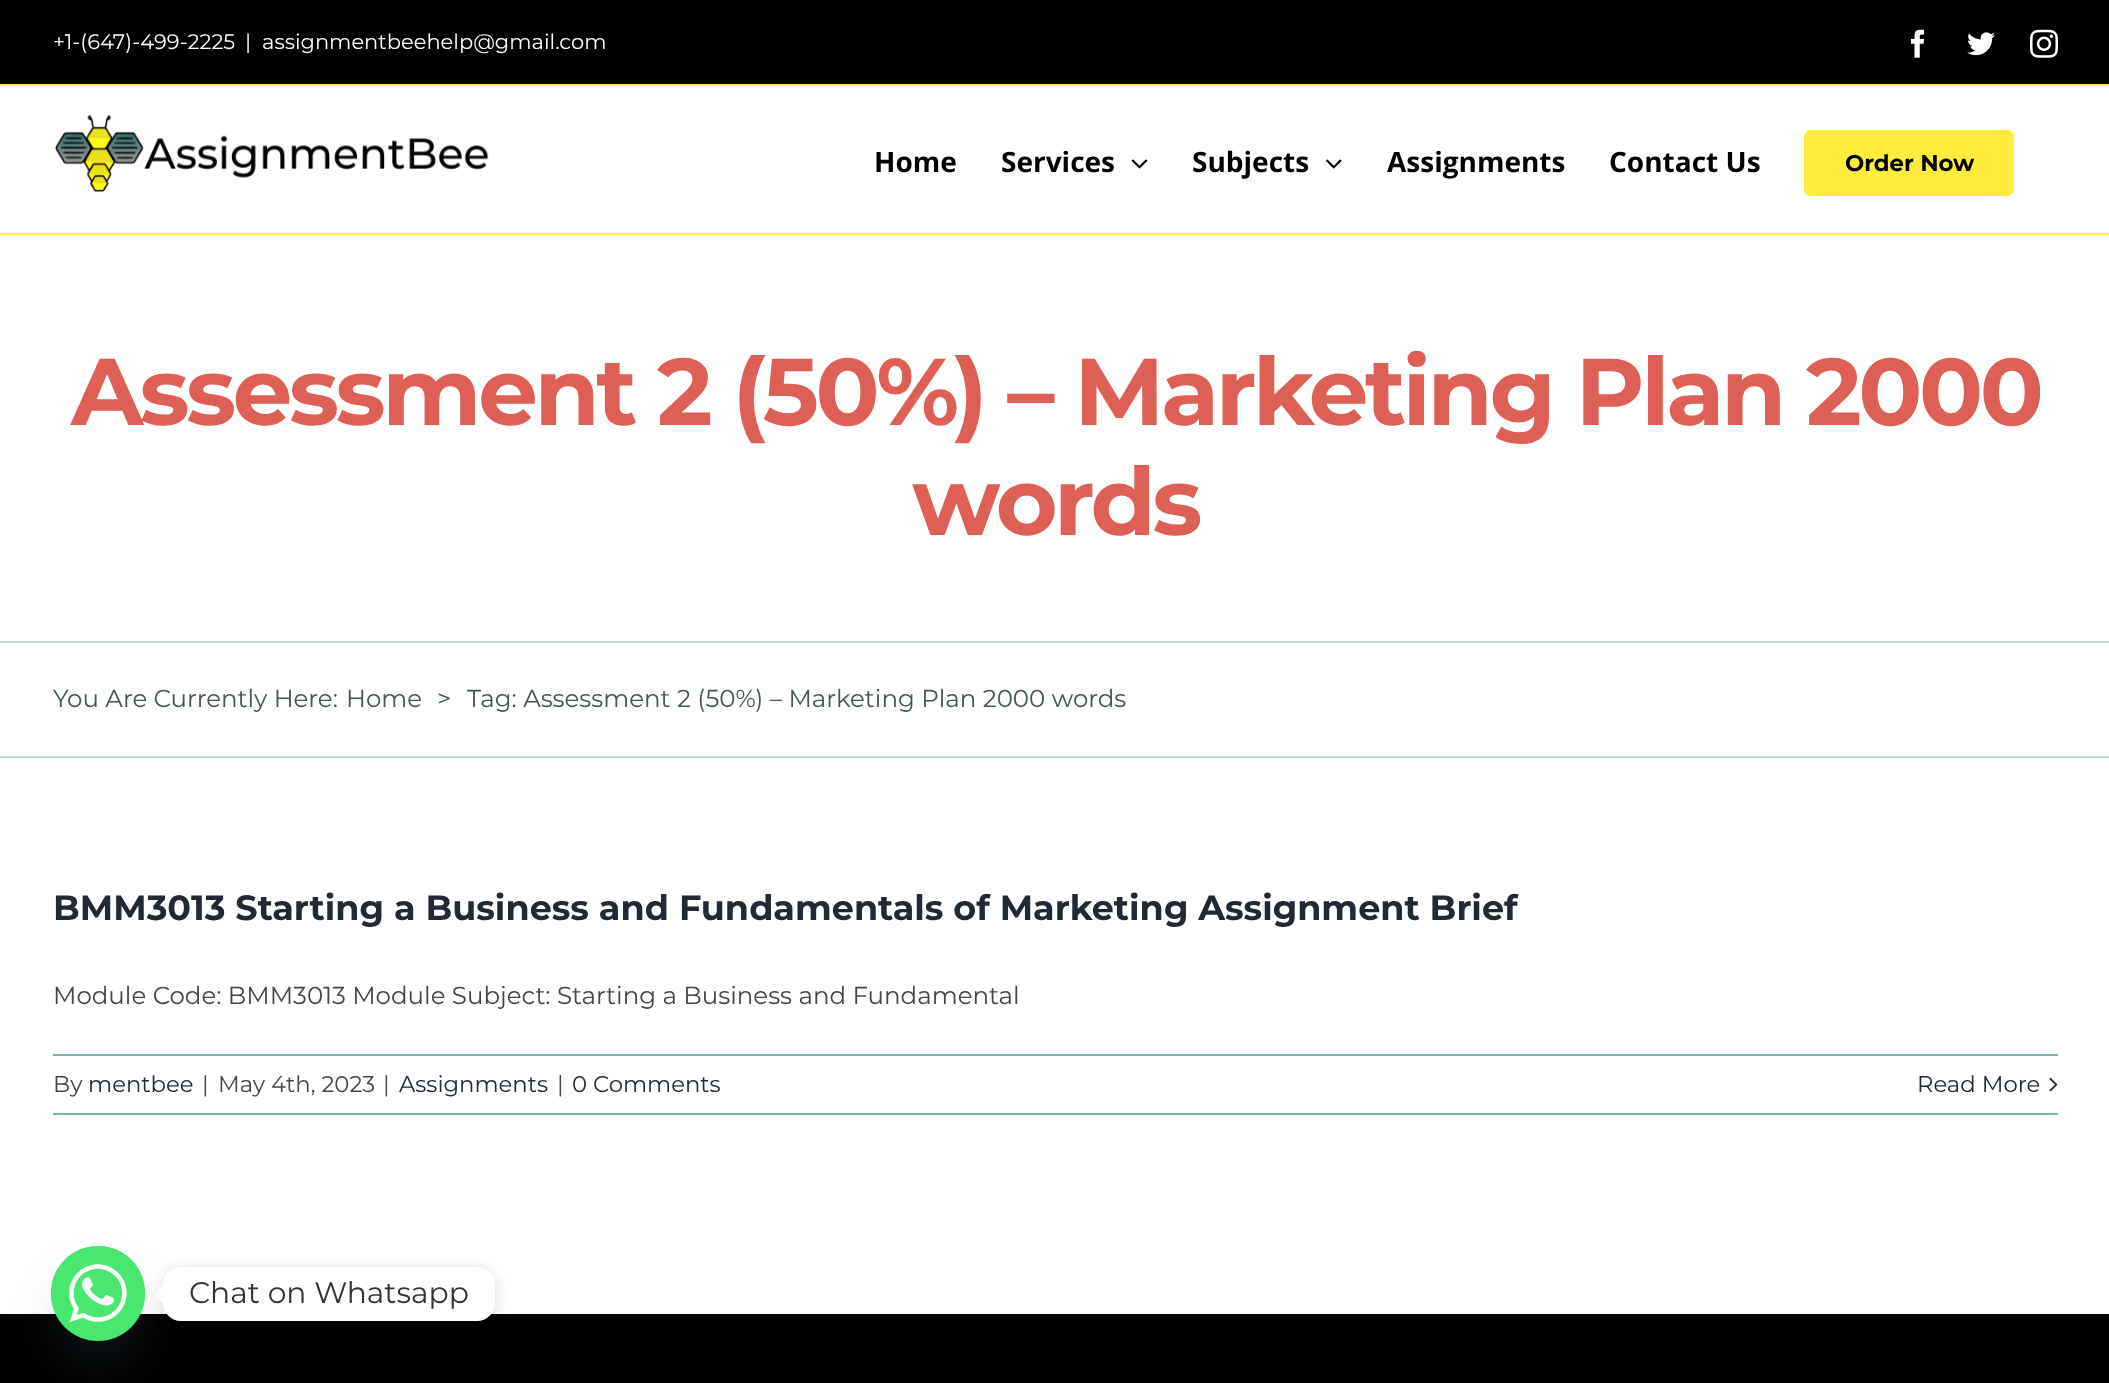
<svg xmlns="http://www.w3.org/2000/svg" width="2109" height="1383">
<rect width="100%" height="100%" fill="#fff"/>
<rect width="2109" height="84" fill="#000"/>
<rect y="84" width="2109" height="2" fill="#ffeb3b"/>
<text x="53" y="49" style="font-family:Montserrat;font-size:21px;fill:#fff">+1-(647)-499-2225</text>
<text x="245" y="49" style="font-family:Montserrat;font-size:21px;fill:#fff">|</text>
<text x="262" y="49" style="font-family:Montserrat;font-size:21px;fill:#fff">assignmentbeehelp@gmail.com</text>
<image x="1911" y="29" width="14" height="29" href="media/1.png"/>
<image x="1967" y="32" width="28" height="24" href="media/2.png"/>
<image x="2030" y="29" width="28" height="29" href="media/3.png"/>
<rect y="233" width="2109" height="2" fill="#ffeb3b"/>
<image x="55" y="115" width="434" height="77" href="media/4.png"/>
<text x="874" y="172" style="font-family:Open Sans;font-size:28px;font-weight:bold;fill:#000">Home</text>
<text x="1001" y="172" style="font-family:Open Sans;font-size:28px;font-weight:bold;fill:#000">Services</text>
<image x="1131" y="159" width="17" height="10" href="media/5.png"/>
<text x="1192" y="172" style="font-family:Open Sans;font-size:28px;font-weight:bold;fill:#000">Subjects</text>
<image x="1326" y="159" width="16" height="10" href="media/6.png"/>
<text x="1387" y="172" style="font-family:Open Sans;font-size:28px;font-weight:bold;fill:#000">Assignments</text>
<text x="1609" y="172" style="font-family:Open Sans;font-size:28px;font-weight:bold;fill:#000">Contact Us</text>
<rect x="1804" y="130" width="210" height="66" rx="7" fill="#ffeb3b"/>
<text x="1845" y="171" style="font-family:Montserrat;font-size:22.75px;font-weight:bold;fill:#000">Order Now</text>
<text x="71" y="425" style="font-family:Montserrat;font-size:94.5px;font-weight:bold;letter-spacing:-3.5px;fill:#dd5f56">Assessment 2 (50%) – Marketing Plan 2000</text>
<text x="912" y="535" style="font-family:Montserrat;font-size:94.5px;font-weight:bold;letter-spacing:-3.5px;fill:#dd5f56">words</text>
<rect y="641" width="2109" height="2" fill="#bbd8d6"/>
<rect y="756" width="2109" height="2" fill="#bbd8d6"/>
<text x="53" y="707" style="font-family:Montserrat;font-size:24.5px;fill:#435554">You Are Currently Here:</text>
<text x="346" y="707" style="font-family:Montserrat;font-size:24.5px;fill:#435554">Home</text>
<text x="437" y="707" style="font-family:Montserrat;font-size:24.5px;fill:#435554">&gt;</text>
<text x="467" y="707" style="font-family:Montserrat;font-size:24.5px;fill:#435554">Tag: Assessment 2 (50%) – Marketing Plan 2000 words</text>
<text x="53" y="920" style="font-family:Montserrat;font-size:35px;font-weight:bold;fill:#212934">BMM3013 Starting a Business and Fundamentals of Marketing Assignment Brief</text>
<text x="53" y="1004" style="font-family:Montserrat;font-size:24.5px;fill:#454545">Module Code: BMM3013 Module Subject: Starting a Business and Fundamental</text>
<rect x="53" y="1054" width="2005" height="2" fill="#7bb3af"/>
<rect x="53" y="1113" width="2005" height="2" fill="#7bb3af"/>
<text x="53" y="1092" style="font-family:Montserrat;font-size:22.75px;fill:#454545">By</text>
<text x="88" y="1092" style="font-family:Montserrat;font-size:22.75px;fill:#212934">mentbee</text>
<text x="202" y="1092" style="font-family:Montserrat;font-size:22.75px;fill:#454545">|</text>
<text x="218" y="1092" style="font-family:Montserrat;font-size:22.75px;fill:#454545">May 4th, 2023</text>
<text x="383" y="1092" style="font-family:Montserrat;font-size:22.75px;fill:#454545">|</text>
<text x="399" y="1092" style="font-family:Montserrat;font-size:22.75px;fill:#212934">Assignments</text>
<text x="557" y="1092" style="font-family:Montserrat;font-size:22.75px;fill:#454545">|</text>
<text x="572" y="1092" style="font-family:Montserrat;font-size:22.75px;fill:#212934">0 Comments</text>
<text x="1917" y="1092" style="font-family:Montserrat;font-size:22.75px;fill:#212934">Read More</text>
<image x="2049" y="1077" width="9" height="15" href="media/7.png"/>
<rect y="1314" width="2109" height="69" fill="#000"/>
<rect x="51" y="1274" width="94" height="95" rx="47" fill="#49687e29" filter="blur(21px)"/>
<rect x="51" y="1246" width="94" height="95" rx="47" fill="#49e670"/>
<image x="51" y="1246" width="94" height="81" href="media/8.png"/>
<rect x="163" y="1269" width="332" height="54" rx="18" fill="#00000026" filter="blur(7px)"/>
<rect x="163" y="1267" width="332" height="54" rx="18" fill="#fff"/>
<path d="M163 1285.5v17.5l-9-9z" fill="#fff"/>
<text x="189" y="1303" style="font-family:Montserrat;font-size:29.75px;fill:#333">Chat on Whatsapp</text>
</svg>
